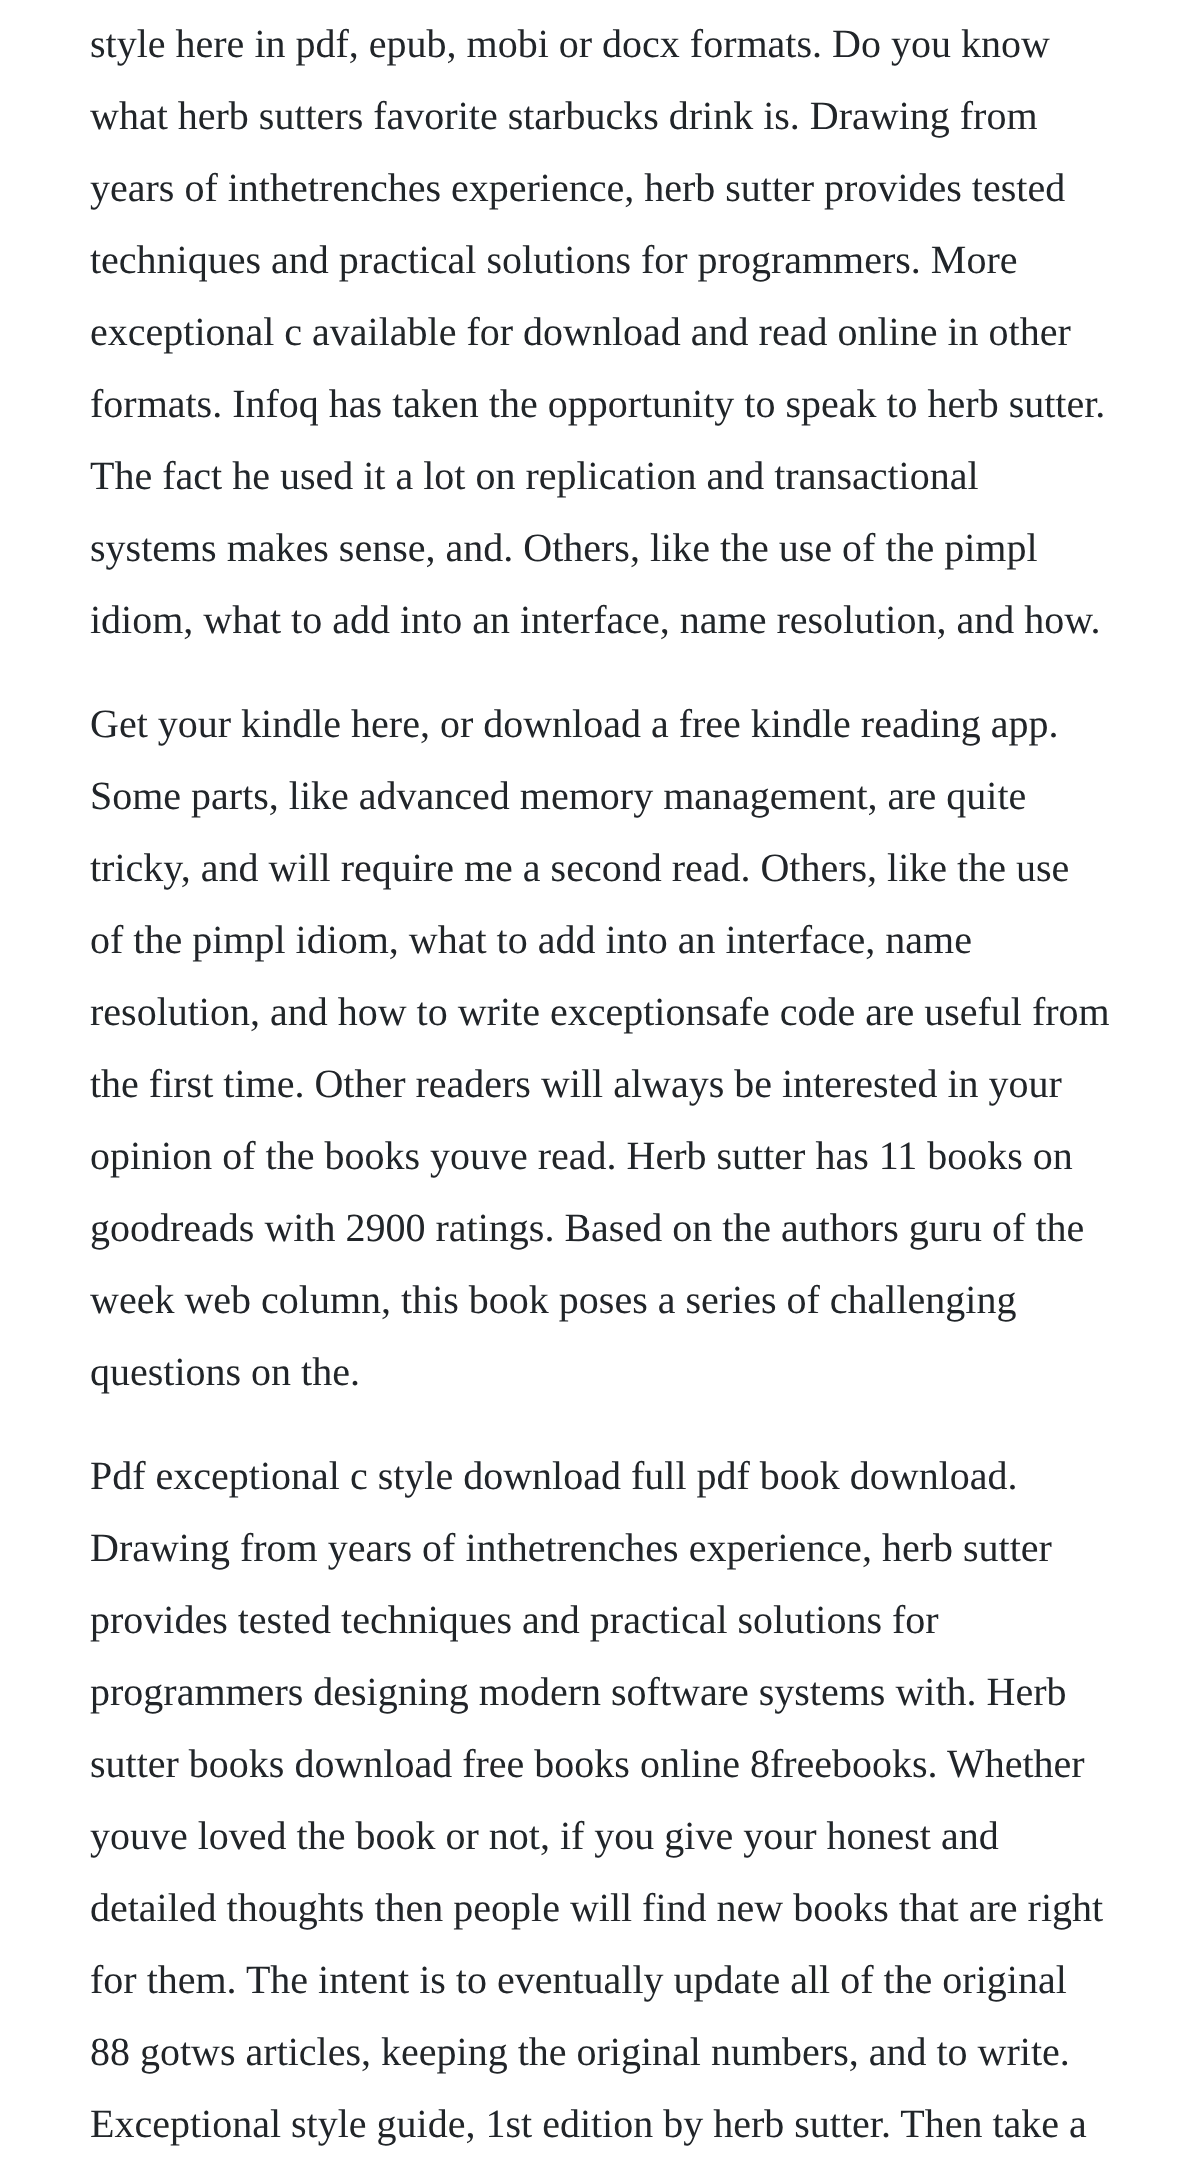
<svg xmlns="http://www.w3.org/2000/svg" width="1202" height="2179">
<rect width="100%" height="100%" fill="#fff"/>
<text x="90" y="57" style="font-family:Liberation Serif;font-size:40px;fill:#212529">style here in pdf, epub, mobi or docx formats. Do you know</text>
<text x="90" y="129" style="font-family:Liberation Serif;font-size:40px;fill:#212529">what herb sutters favorite starbucks drink is. Drawing from</text>
<text x="90" y="201" style="font-family:Liberation Serif;font-size:40px;fill:#212529">years of inthetrenches experience, herb sutter provides tested</text>
<text x="90" y="273" style="font-family:Liberation Serif;font-size:40px;fill:#212529">techniques and practical solutions for programmers. More</text>
<text x="90" y="345" style="font-family:Liberation Serif;font-size:40px;fill:#212529">exceptional c available for download and read online in other</text>
<text x="90" y="417" style="font-family:Liberation Serif;font-size:40px;fill:#212529">formats. Infoq has taken the opportunity to speak to herb sutter.</text>
<text x="90" y="489" style="font-family:Liberation Serif;font-size:40px;fill:#212529">The fact he used it a lot on replication and transactional</text>
<text x="90" y="561" style="font-family:Liberation Serif;font-size:40px;fill:#212529">systems makes sense, and. Others, like the use of the pimpl</text>
<text x="90" y="633" style="font-family:Liberation Serif;font-size:40px;fill:#212529">idiom, what to add into an interface, name resolution, and how.</text>
<text x="90" y="737" style="font-family:Liberation Serif;font-size:40px;fill:#212529">Get your kindle here, or download a free kindle reading app.</text>
<text x="90" y="809" style="font-family:Liberation Serif;font-size:40px;fill:#212529">Some parts, like advanced memory management, are quite</text>
<text x="90" y="881" style="font-family:Liberation Serif;font-size:40px;fill:#212529">tricky, and will require me a second read. Others, like the use</text>
<text x="90" y="953" style="font-family:Liberation Serif;font-size:40px;fill:#212529">of the pimpl idiom, what to add into an interface, name</text>
<text x="90" y="1025" style="font-family:Liberation Serif;font-size:40px;fill:#212529">resolution, and how to write exceptionsafe code are useful from</text>
<text x="90" y="1097" style="font-family:Liberation Serif;font-size:40px;fill:#212529">the first time. Other readers will always be interested in your</text>
<text x="90" y="1169" style="font-family:Liberation Serif;font-size:40px;fill:#212529">opinion of the books youve read. Herb sutter has 11 books on</text>
<text x="90" y="1241" style="font-family:Liberation Serif;font-size:40px;fill:#212529">goodreads with 2900 ratings. Based on the authors guru of the</text>
<text x="90" y="1313" style="font-family:Liberation Serif;font-size:40px;fill:#212529">week web column, this book poses a series of challenging</text>
<text x="90" y="1385" style="font-family:Liberation Serif;font-size:40px;fill:#212529">questions on the.</text>
<text x="90" y="1489" style="font-family:Liberation Serif;font-size:40px;fill:#212529">Pdf exceptional c style download full pdf book download.</text>
<text x="90" y="1561" style="font-family:Liberation Serif;font-size:40px;fill:#212529">Drawing from years of inthetrenches experience, herb sutter</text>
<text x="90" y="1633" style="font-family:Liberation Serif;font-size:40px;fill:#212529">provides tested techniques and practical solutions for</text>
<text x="90" y="1705" style="font-family:Liberation Serif;font-size:40px;fill:#212529">programmers designing modern software systems with. Herb</text>
<text x="90" y="1777" style="font-family:Liberation Serif;font-size:40px;fill:#212529">sutter books download free books online 8freebooks. Whether</text>
<text x="90" y="1849" style="font-family:Liberation Serif;font-size:40px;fill:#212529">youve loved the book or not, if you give your honest and</text>
<text x="90" y="1921" style="font-family:Liberation Serif;font-size:40px;fill:#212529">detailed thoughts then people will find new books that are right</text>
<text x="90" y="1993" style="font-family:Liberation Serif;font-size:40px;fill:#212529">for them. The intent is to eventually update all of the original</text>
<text x="90" y="2065" style="font-family:Liberation Serif;font-size:40px;fill:#212529">88 gotws articles, keeping the original numbers, and to write.</text>
<text x="90" y="2137" style="font-family:Liberation Serif;font-size:40px;fill:#212529">Exceptional style guide, 1st edition by herb sutter. Then take a</text>
</svg>
